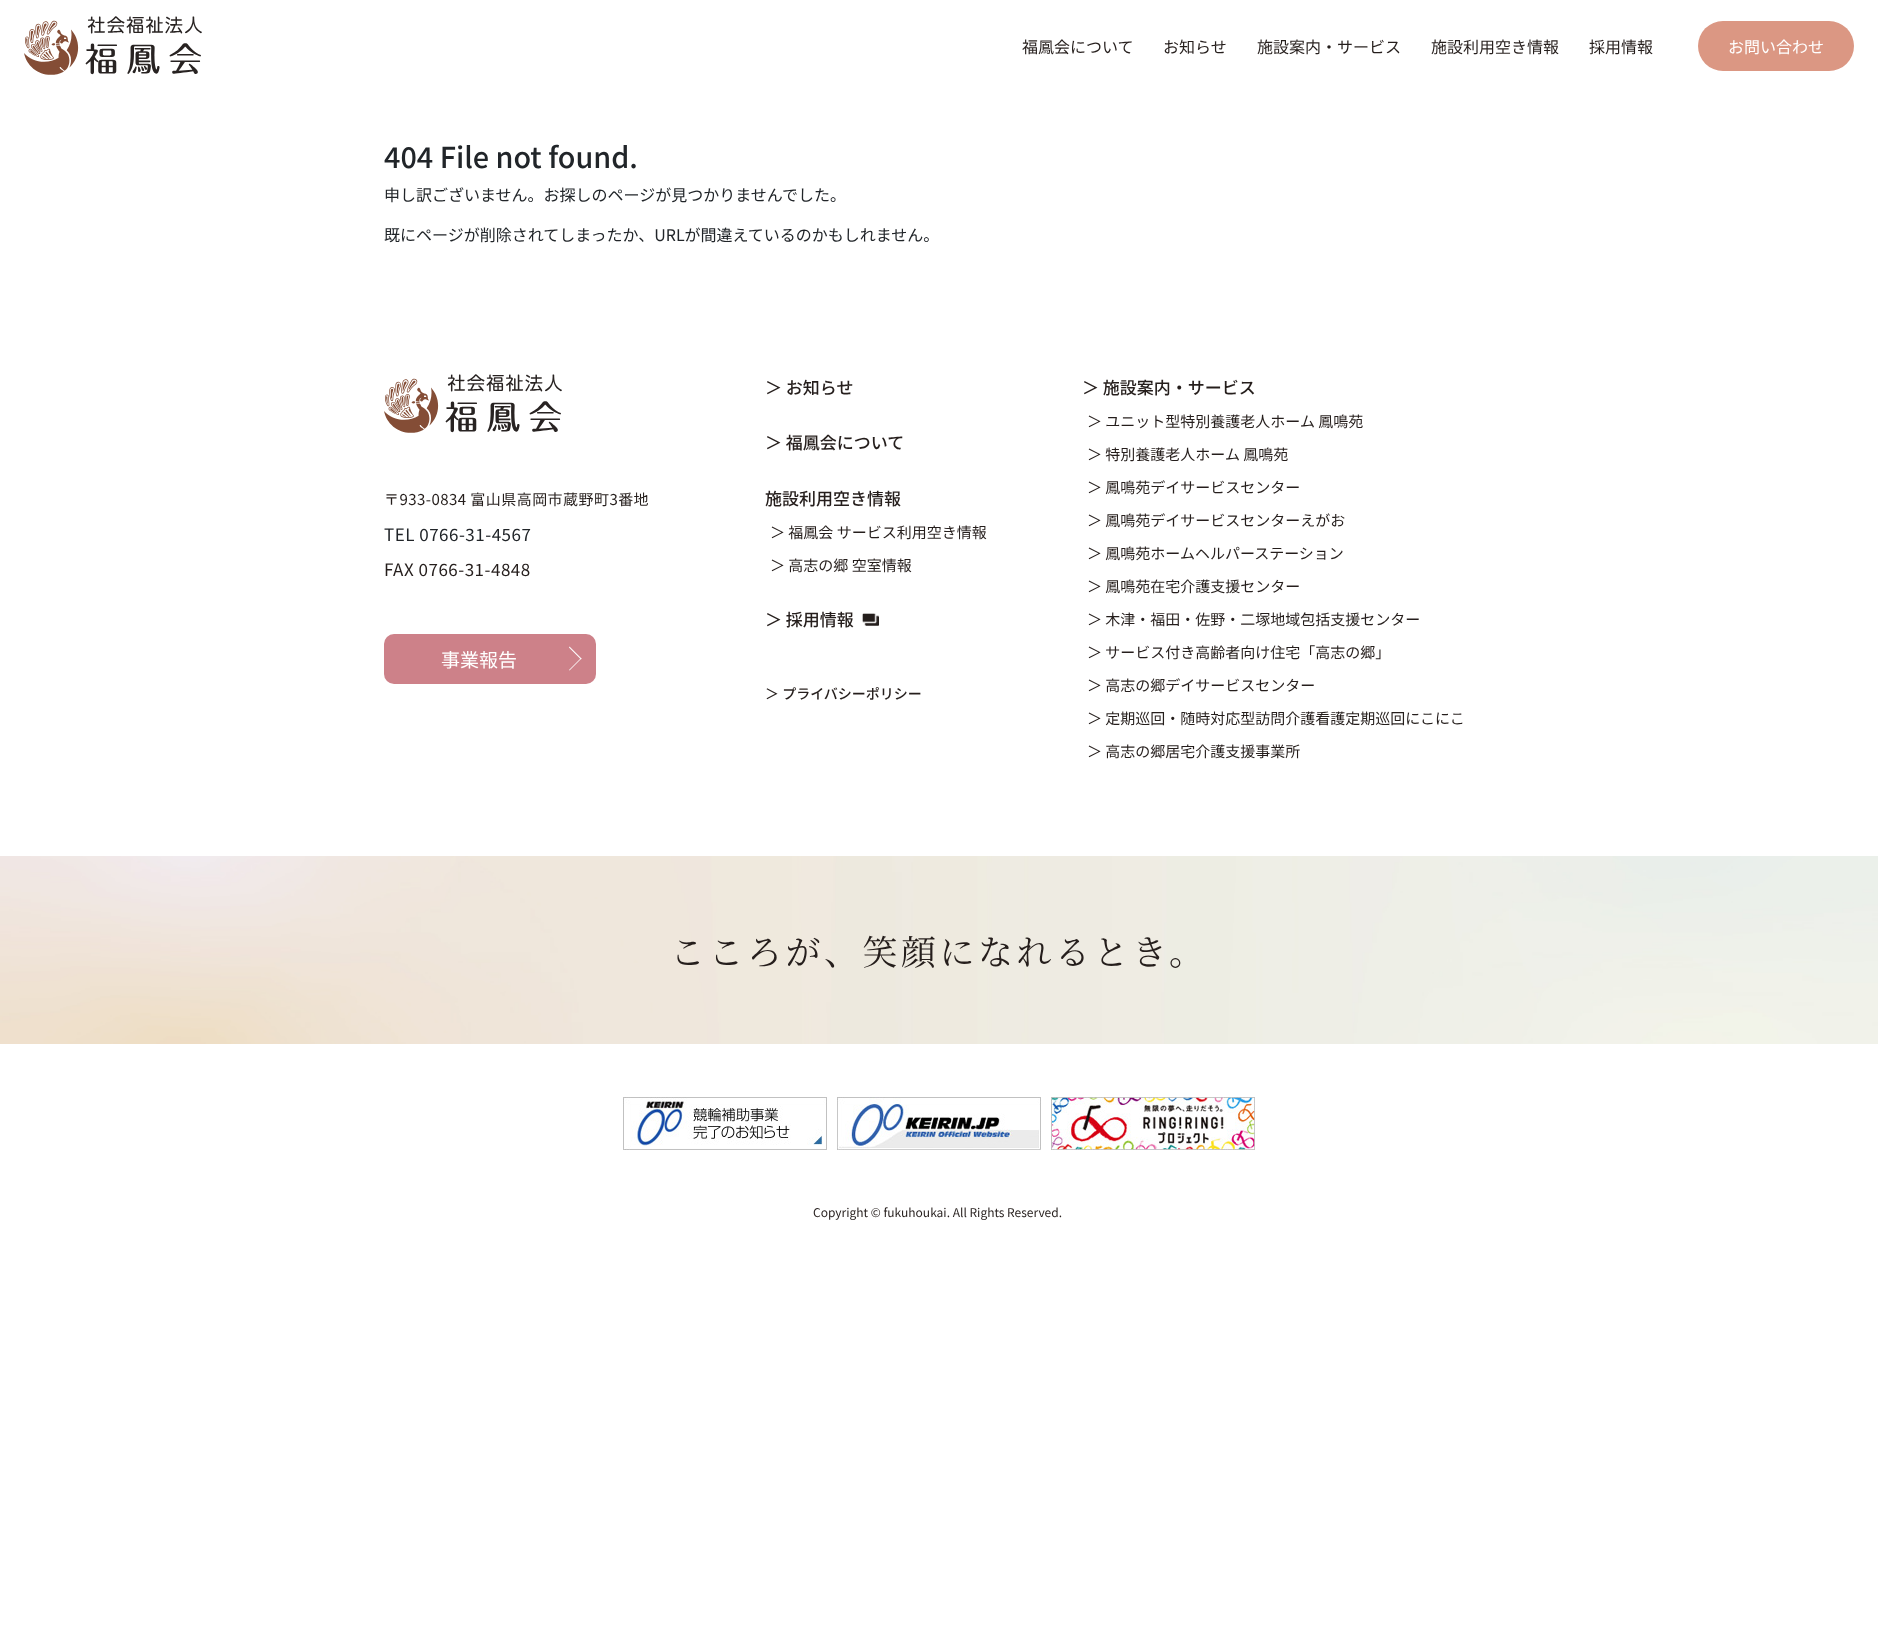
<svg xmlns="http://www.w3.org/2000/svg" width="1878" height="1652">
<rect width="100%" height="100%" fill="#fff"/>
<image x="24" y="16" width="178" height="59" href="media/1.png"/>
<text x="1022" y="53" style="font-family:Noto Sans JP;font-size:16px;fill:#251e1c">福鳳会について</text>
<text x="1163" y="53" style="font-family:Noto Sans JP;font-size:16px;fill:#251e1c">お知らせ</text>
<text x="1257" y="53" style="font-family:Noto Sans JP;font-size:16px;fill:#251e1c">施設案内・サービス</text>
<text x="1431" y="53" style="font-family:Noto Sans JP;font-size:16px;fill:#251e1c">施設利用空き情報</text>
<text x="1589" y="53" style="font-family:Noto Sans JP;font-size:16px;fill:#251e1c">採用情報</text>
<rect x="1698" y="21" width="156" height="50" rx="25" fill="#db9783"/>
<text x="1728" y="53" style="font-family:Noto Sans JP;font-size:16px;fill:#fff">お問い合わせ</text>
<text x="384" y="168" style="font-family:Noto Sans JP;font-size:28.75px;font-weight:500;fill:#212529">404 File not found.</text>
<text x="384" y="201" style="font-family:Noto Sans JP;font-size:16px;fill:#212529">申し訳ございません。お探しのページが見つかりませんでした。</text>
<text x="384" y="241" style="font-family:Noto Sans JP;font-size:16px;fill:#212529">既にページが削除されてしまったか、URLが間違えているのかもしれません。</text>
<image x="384" y="374" width="178" height="59" href="media/2.png"/>
<text x="384" y="505" style="font-family:Noto Sans JP;font-size:15px;letter-spacing:0.45px;fill:#251e1c">〒933-0834 富山県高岡市蔵野町3番地</text>
<text x="384" y="541" style="font-family:Noto Sans JP;font-size:17px;letter-spacing:0.5px;fill:#212529">TEL 0766-31-4567</text>
<text x="384" y="576" style="font-family:Noto Sans JP;font-size:17px;letter-spacing:0.5px;fill:#251e1c">FAX 0766-31-4848</text>
<rect x="384" y="634" width="212" height="50" rx="10" fill="#cd8189"/>
<text x="441" y="667" style="font-family:Noto Sans JP;font-size:19px;fill:#fff">事業報告</text>
<path d="M569 647.5l.5-1l12 12l-.5 1z" fill="#fff"/>
<path d="M569 670l12-12l.5 .5l-12 12z" fill="#fff"/>
<text x="765" y="394" style="font-family:Noto Sans JP;font-size:17px;font-weight:500;fill:#251e1c">＞ お知らせ</text>
<text x="765" y="449" style="font-family:Noto Sans JP;font-size:17px;font-weight:500;fill:#251e1c">＞ 福鳳会について</text>
<text x="765" y="505" style="font-family:Noto Sans JP;font-size:17px;font-weight:500;fill:#251e1c">施設利用空き情報</text>
<text x="770" y="538" style="font-family:Noto Sans JP;font-size:15px;fill:#251e1c">＞ 福鳳会 サービス利用空き情報</text>
<text x="770" y="571" style="font-family:Noto Sans JP;font-size:15px;fill:#251e1c">＞ 高志の郷 空室情報</text>
<text x="765" y="626" style="font-family:Noto Sans JP;font-size:17px;font-weight:500;fill:#251e1c">＞ 採用情報</text>
<image x="862" y="613" width="17" height="13" href="media/3.png"/>
<text x="765" y="699" style="font-family:Noto Sans JP;font-size:14px;font-weight:500;fill:#251e1c">＞ プライバシーポリシー</text>
<text x="1082" y="394" style="font-family:Noto Sans JP;font-size:17px;font-weight:500;fill:#251e1c">＞ 施設案内・サービス</text>
<text x="1087" y="427" style="font-family:Noto Sans JP;font-size:15px;fill:#251e1c">＞ ユニット型特別養護老人ホーム 鳳鳴苑</text>
<text x="1087" y="460" style="font-family:Noto Sans JP;font-size:15px;fill:#251e1c">＞ 特別養護老人ホーム 鳳鳴苑</text>
<text x="1087" y="493" style="font-family:Noto Sans JP;font-size:15px;fill:#251e1c">＞ 鳳鳴苑デイサービスセンター</text>
<text x="1087" y="526" style="font-family:Noto Sans JP;font-size:15px;fill:#251e1c">＞ 鳳鳴苑デイサービスセンターえがお</text>
<text x="1087" y="559" style="font-family:Noto Sans JP;font-size:15px;fill:#251e1c">＞ 鳳鳴苑ホームヘルパーステーション</text>
<text x="1087" y="592" style="font-family:Noto Sans JP;font-size:15px;fill:#251e1c">＞ 鳳鳴苑在宅介護支援センター</text>
<text x="1087" y="625" style="font-family:Noto Sans JP;font-size:15px;fill:#251e1c">＞ 木津・福田・佐野・二塚地域包括支援センター</text>
<text x="1087" y="658" style="font-family:Noto Sans JP;font-size:15px;fill:#251e1c">＞ サービス付き高齢者向け住宅「高志の郷」</text>
<text x="1087" y="691" style="font-family:Noto Sans JP;font-size:15px;fill:#251e1c">＞ 高志の郷デイサービスセンター</text>
<text x="1087" y="724" style="font-family:Noto Sans JP;font-size:15px;fill:#251e1c">＞ 定期巡回・随時対応型訪問介護看護定期巡回にこにこ</text>
<text x="1087" y="757" style="font-family:Noto Sans JP;font-size:15px;fill:#251e1c">＞ 高志の郷居宅介護支援事業所</text>
<image x="0" y="856" width="1878" height="188" href="media/4.png"/>
<text x="670" y="965" style="font-family:Noto Serif JP;font-size:35px;letter-spacing:3.5px;fill:#251e1c">こころが、笑顔になれるとき。</text>
<image x="623" y="1097" width="204" height="53" href="media/5.png"/>
<image x="837" y="1097" width="204" height="53" href="media/6.png"/>
<image x="1051" y="1097" width="204" height="53" href="media/7.png"/>
<text x="813" y="1217" style="font-family:Noto Sans JP;font-size:12px;fill:#251e1c">Copyright ©︎ fukuhoukai. All Rights Reserved.</text>
</svg>
